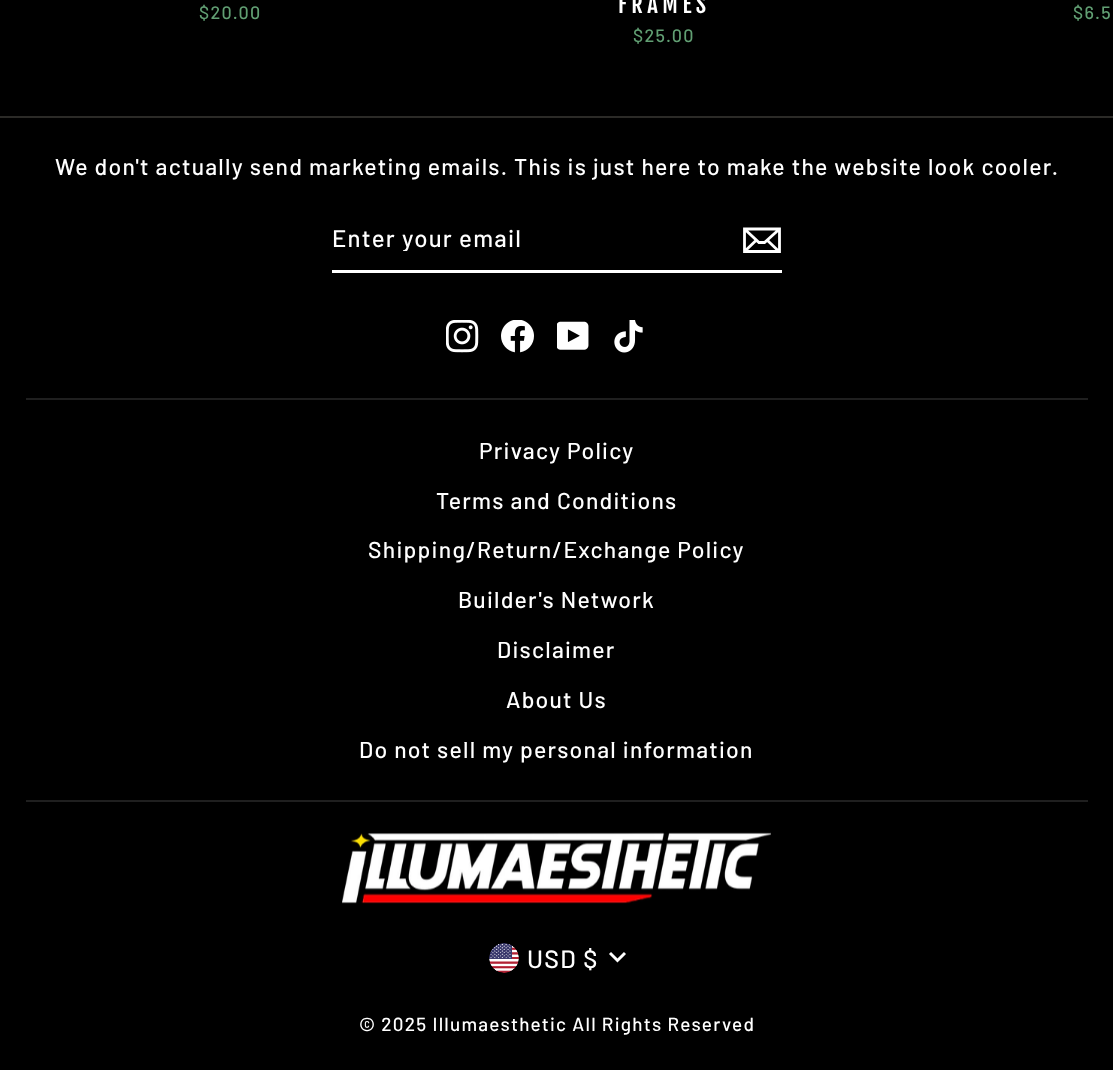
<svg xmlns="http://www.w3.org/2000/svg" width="1113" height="1070">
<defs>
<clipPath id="clip1"><rect x="332" y="222" width="382" height="29"/></clipPath>
</defs>
<rect width="100%" height="100%" fill="#000"/>
<text x="199" y="19" style="font-family:Barlow;font-size:18px;font-weight:500;letter-spacing:1.25px;fill:#619f73">$20.00</text>
<text x="618" y="13" style="font-family:Fjalla One;font-size:22.5px;letter-spacing:4.5px;fill:#fff">FRAMES</text>
<text x="633" y="42" style="font-family:Barlow;font-size:18px;font-weight:500;letter-spacing:1.25px;fill:#619f73">$25.00</text>
<text x="1073" y="19" style="font-family:Barlow;font-size:18px;font-weight:500;letter-spacing:1.25px;fill:#619f73">$6.5</text>
<rect y="116" width="1113" height="2" fill="#2b2a27"/>
<text x="55" y="175" style="font-family:Barlow;font-size:22.95px;font-weight:500;letter-spacing:1.25px;fill:#fff">We don't actually send marketing emails. This is just here to make the website look cooler.</text>
<rect x="332" y="270" width="450" height="3" fill="#fff"/>
<g clip-path="url(#clip1)">
<text x="332" y="247" style="font-family:Barlow;font-size:24px;font-weight:500;letter-spacing:1.25px;fill:#fff">Enter your email</text>
</g>
<path d="M779.5 251.5h-35v-22.5h35zm-35-22.5l14.5 13.5h5.5l15-13.5m-23 11l-11.5 11m34 .5l-12-11.5" fill="none" stroke="#fff" stroke-width="2.8"/>
<image x="446" y="320" width="33" height="33" href="media/1.png"/>
<image x="501" y="320" width="33" height="33" href="media/2.png"/>
<image x="557" y="321" width="32" height="29" href="media/3.png"/>
<image x="614" y="320" width="29" height="33" href="media/4.png"/>
<rect x="26" y="398" width="1062" height="2" fill="#1f1f1f"/>
<text x="479" y="459" style="font-family:Barlow;font-size:22.95px;font-weight:500;letter-spacing:1.25px;fill:#fff">Privacy Policy</text>
<text x="436" y="509" style="font-family:Barlow;font-size:22.95px;font-weight:500;letter-spacing:1.25px;fill:#fff">Terms and Conditions</text>
<text x="368" y="558" style="font-family:Barlow;font-size:22.95px;font-weight:500;letter-spacing:1.25px;fill:#fff">Shipping/Return/Exchange Policy</text>
<text x="458" y="608" style="font-family:Barlow;font-size:22.95px;font-weight:500;letter-spacing:1.25px;fill:#fff">Builder's Network</text>
<text x="497" y="658" style="font-family:Barlow;font-size:22.95px;font-weight:500;letter-spacing:1.25px;fill:#fff">Disclaimer</text>
<text x="506" y="708" style="font-family:Barlow;font-size:22.95px;font-weight:500;letter-spacing:1.25px;fill:#fff">About Us</text>
<text x="359" y="758" style="font-family:Barlow;font-size:22.95px;font-weight:500;letter-spacing:1.25px;fill:#fff">Do not sell my personal information</text>
<rect x="26" y="800" width="1062" height="2" fill="#1f1f1f"/>
<image x="342" y="832" width="429" height="72" href="media/5.png"/>
<image x="489" y="943" width="30" height="30" href="media/6.png"/>
<text x="527" y="968" style="font-family:Barlow;font-size:25px;font-weight:500;letter-spacing:1.25px;fill:#fff">USD $</text>
<path d="M610 953l7.5 7.5l7.5-7.5" fill="none" stroke="#fff" stroke-width="2.9"/>
<text x="359" y="1031" style="font-family:Barlow;font-size:18.9px;font-weight:500;letter-spacing:1.25px;fill:#fff">© 2025 Illumaesthetic All Rights Reserved</text>
</svg>
